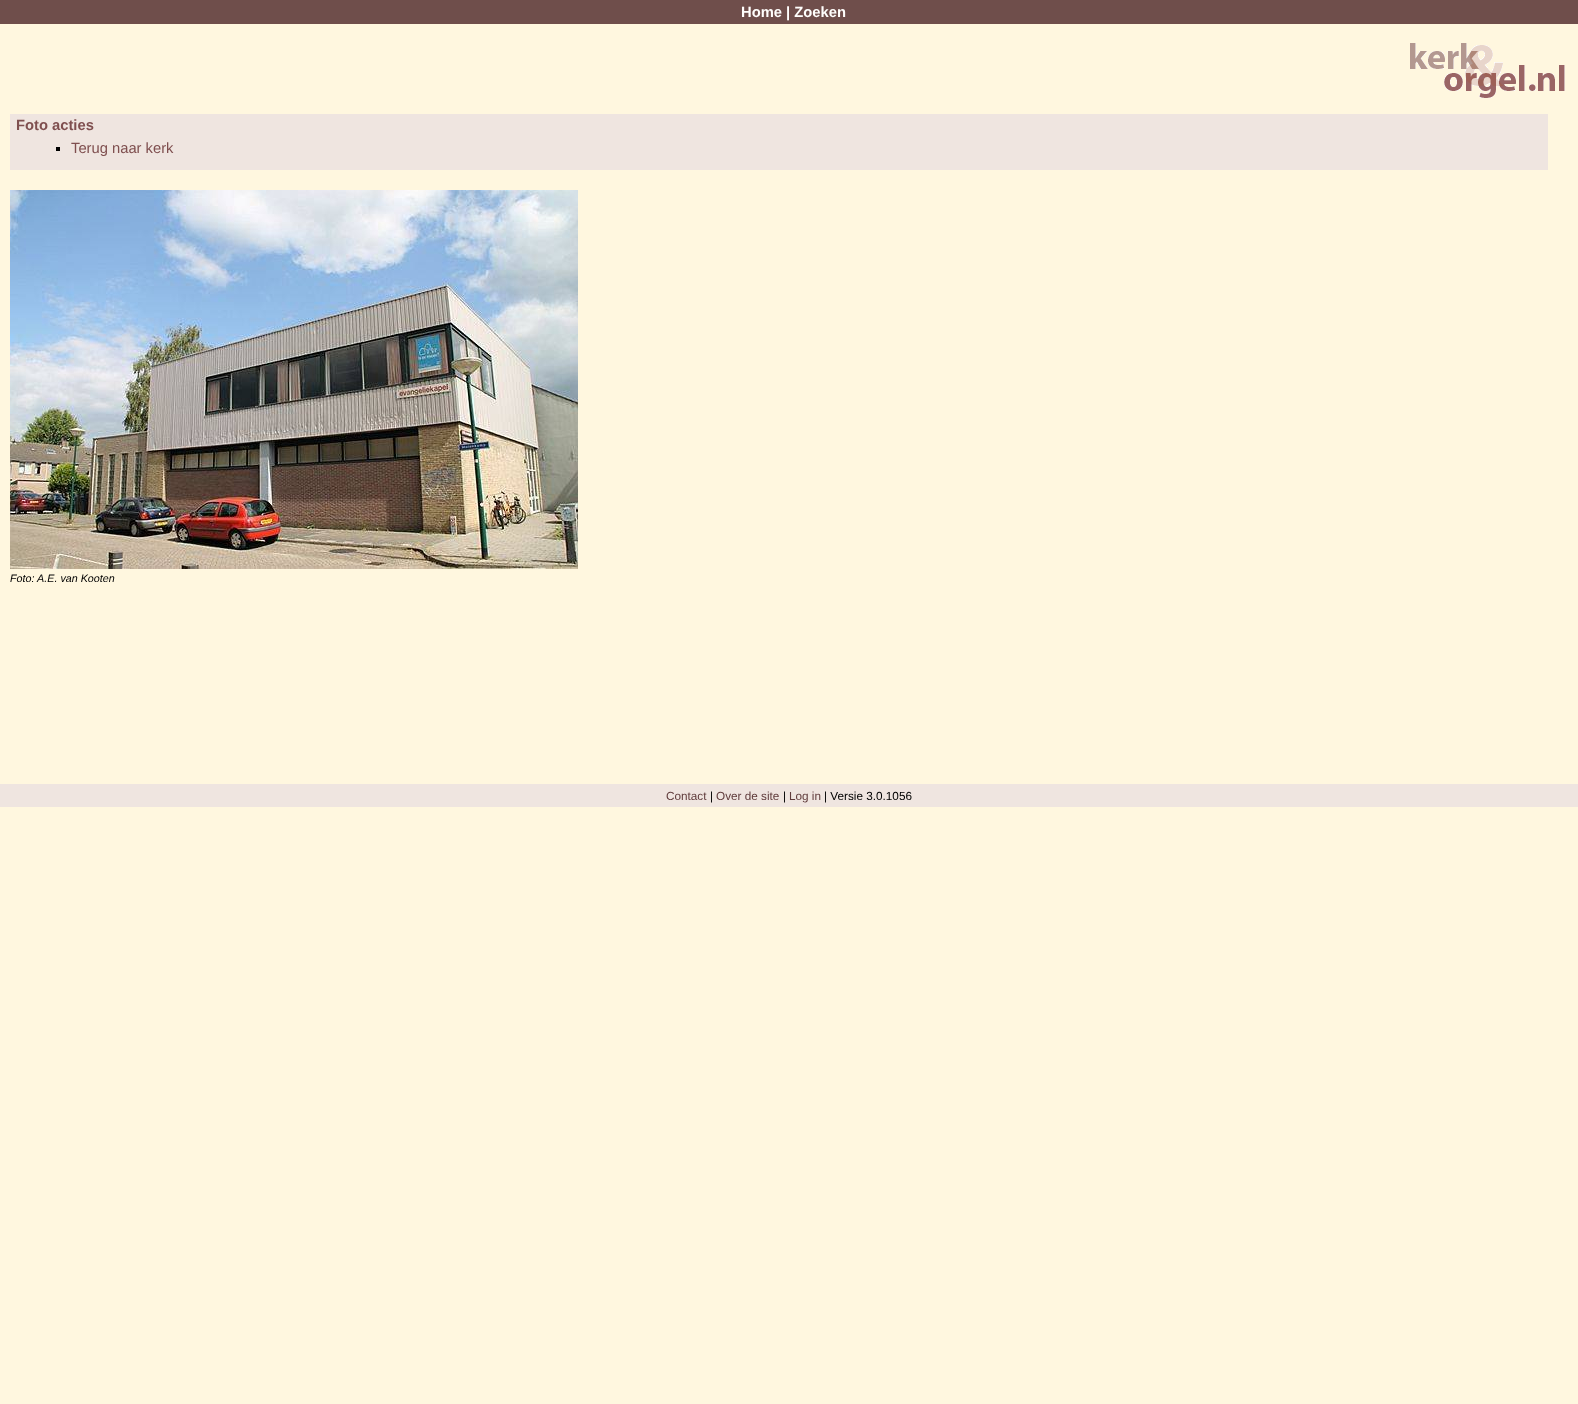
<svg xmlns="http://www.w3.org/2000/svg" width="1578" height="1404">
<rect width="100%" height="100%" fill="#fff7df"/>
<rect width="1578" height="24" fill="#6f4e4b"/>
<text x="741" y="17" style="font-family:Liberation Sans;font-size:14.75px;font-weight:bold;fill:#fffefc">Home | Zoeken</text>
<image x="1410" y="43" width="155" height="55" href="media/1.png"/>
<rect x="10" y="114" width="1538" height="56" fill="#efe5e0"/>
<text x="16" y="130" style="font-family:Liberation Sans;font-size:14.75px;font-weight:bold;fill:#7f4f4f">Foto acties</text>
<rect x="56" y="147" width="4" height="4" fill="#000"/>
<text x="71" y="153" style="font-family:Liberation Sans;font-size:14.75px;fill:#7f4f4f">Terug naar kerk</text>
<image x="10" y="190" width="568" height="379" href="media/2.png"/>
<text x="10" y="582" style="font-family:Liberation Sans;font-size:10.75px;font-style:italic;fill:#000">Foto: A.E. van Kooten</text>
<rect y="784" width="1578" height="23" fill="#efe5e0"/>
<text x="666" y="800" style="font-family:Liberation Sans;font-size:11.75px;fill:#5f3b3b">Contact</text>
<text x="710" y="800" style="font-family:Liberation Sans;font-size:11.75px;fill:#000">|</text>
<text x="716" y="800" style="font-family:Liberation Sans;font-size:11.75px;fill:#5f3b3b">Over de site</text>
<text x="783" y="800" style="font-family:Liberation Sans;font-size:11.75px;fill:#000">|</text>
<text x="789" y="800" style="font-family:Liberation Sans;font-size:11.75px;fill:#5f3b3b">Log in</text>
<text x="824" y="800" style="font-family:Liberation Sans;font-size:11.75px;fill:#000">| Versie 3.0.1056</text>
</svg>
